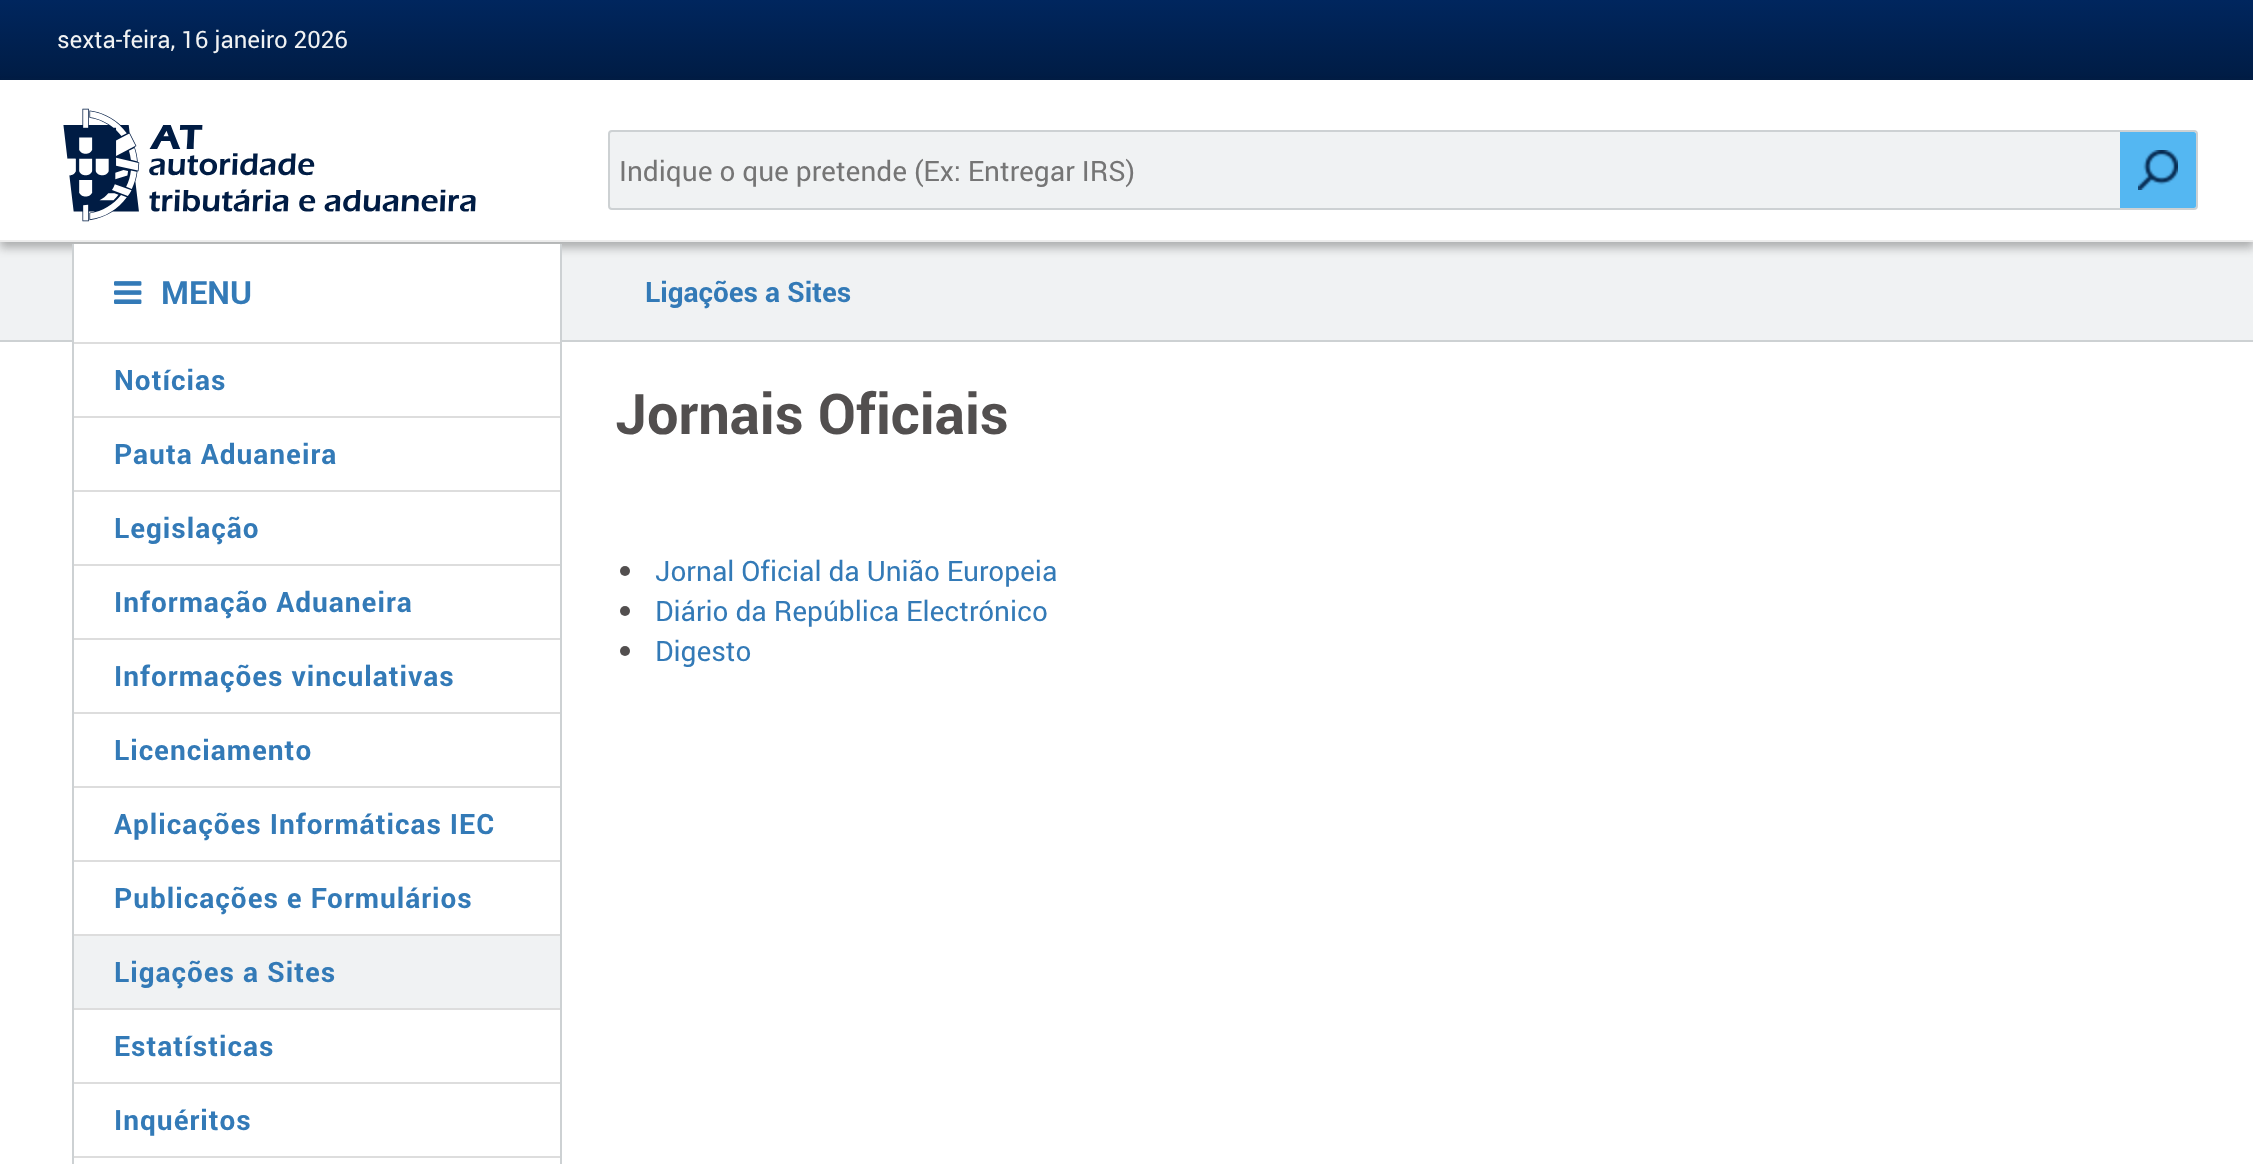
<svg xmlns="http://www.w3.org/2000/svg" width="2253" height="1164">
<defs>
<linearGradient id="g1" gradientUnits="userSpaceOnUse" x1="1127" y1="0" x2="1127" y2="80"><stop offset="0" stop-color="#00265e"/><stop offset="1" stop-color="#001c44"/></linearGradient>
<clipPath id="clip1"><path d="M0 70h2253v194h-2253zm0 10h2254v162h-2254z" clip-rule="evenodd"/></clipPath>
</defs>
<rect width="100%" height="100%" fill="#fff"/>
<rect width="2253" height="80" fill="url(#g1)"/>
<text x="57" y="48" style="font-family:Roboto;font-size:24px;fill:#f0f2f3">sexta-feira, 16 janeiro 2026</text>
<rect y="242" width="2253" height="98" fill="#f0f2f3"/>
<g clip-path="url(#clip1)">
<rect y="86" width="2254" height="162" fill="#32323259" filter="blur(5px)"/>
</g>
<rect y="240" width="2253" height="2" fill="#ececec"/>
<image x="63" y="108" width="413" height="114" href="media/1.png"/>
<rect x="609" y="131" width="1588" height="78" rx="3" fill="#f0f2f3" stroke="#cdd1d3" stroke-width="2"/>
<text x="619" y="181" style="font-family:Roboto;font-size:28px;fill:#757575">Indique o que pretende (Ex: Entregar IRS)</text>
<path d="M2120 132h74c1 0 2 1 2 2v72c0 1-1 2-2 2h-74z" fill="#54b7f2"/>
<image x="2138" y="150" width="40" height="40" href="media/2.png"/>
<rect y="340" width="2253" height="2" fill="#cdd1d3"/>
<rect x="74" y="244" width="486" height="98" fill="#fff"/>
<rect x="560" y="244" width="2" height="920" fill="#cdd1d3"/>
<rect x="72" y="244" width="2" height="920" fill="#cdd1d3"/>
<image x="114" y="281" width="28" height="23" href="media/3.png"/>
<text x="161" y="304" style="font-family:Roboto;font-size:32px;font-weight:bold;fill:#337ab7">MENU</text>
<rect x="74" y="342" width="486" height="2" fill="#ddd"/>
<rect x="74" y="416" width="486" height="2" fill="#ddd"/>
<text x="114" y="390" style="font-family:Roboto;font-size:28px;font-weight:bold;letter-spacing:1px;fill:#337ab7">Notícias</text>
<rect x="74" y="490" width="486" height="2" fill="#ddd"/>
<text x="114" y="464" style="font-family:Roboto;font-size:28px;font-weight:bold;letter-spacing:1px;fill:#337ab7">Pauta Aduaneira</text>
<rect x="74" y="564" width="486" height="2" fill="#ddd"/>
<text x="114" y="538" style="font-family:Roboto;font-size:28px;font-weight:bold;letter-spacing:1px;fill:#337ab7">Legislação</text>
<rect x="74" y="638" width="486" height="2" fill="#ddd"/>
<text x="114" y="612" style="font-family:Roboto;font-size:28px;font-weight:bold;letter-spacing:1px;fill:#337ab7">Informação Aduaneira</text>
<rect x="74" y="712" width="486" height="2" fill="#ddd"/>
<text x="114" y="686" style="font-family:Roboto;font-size:28px;font-weight:bold;letter-spacing:1px;fill:#337ab7">Informações vinculativas</text>
<rect x="74" y="786" width="486" height="2" fill="#ddd"/>
<text x="114" y="760" style="font-family:Roboto;font-size:28px;font-weight:bold;letter-spacing:1px;fill:#337ab7">Licenciamento</text>
<rect x="74" y="860" width="486" height="2" fill="#ddd"/>
<text x="114" y="834" style="font-family:Roboto;font-size:28px;font-weight:bold;letter-spacing:1px;fill:#337ab7">Aplicações Informáticas IEC</text>
<rect x="74" y="934" width="486" height="2" fill="#ddd"/>
<text x="114" y="908" style="font-family:Roboto;font-size:28px;font-weight:bold;letter-spacing:1px;fill:#337ab7">Publicações e Formulários</text>
<rect x="74" y="936" width="486" height="72" fill="#f0f2f3"/>
<rect x="74" y="1008" width="486" height="2" fill="#ddd"/>
<text x="114" y="982" style="font-family:Roboto;font-size:28px;font-weight:bold;letter-spacing:1px;fill:#337ab7">Ligações a Sites</text>
<rect x="74" y="1082" width="486" height="2" fill="#ddd"/>
<text x="114" y="1056" style="font-family:Roboto;font-size:28px;font-weight:bold;letter-spacing:1px;fill:#337ab7">Estatísticas</text>
<rect x="74" y="1156" width="486" height="2" fill="#ddd"/>
<text x="114" y="1130" style="font-family:Roboto;font-size:28px;font-weight:bold;letter-spacing:1px;fill:#337ab7">Inquéritos</text>
<text x="645" y="302" style="font-family:Roboto;font-size:28px;font-weight:bold;fill:#337ab7">Ligações a Sites</text>
<text x="615" y="434" style="font-family:Roboto;font-size:56px;font-weight:bold;fill:#524f4f">Jornais Oficiais</text>
<circle cx="625" cy="571" r="5" fill="#524f4f"/>
<text x="655" y="581" style="font-family:Roboto;font-size:28px;fill:#337ab7">Jornal Oficial da União Europeia</text>
<circle cx="625" cy="611" r="5" fill="#524f4f"/>
<text x="655" y="621" style="font-family:Roboto;font-size:28px;fill:#337ab7">Diário da República Electrónico</text>
<circle cx="625" cy="651" r="5" fill="#524f4f"/>
<text x="655" y="661" style="font-family:Roboto;font-size:28px;fill:#337ab7">Digesto</text>
</svg>
